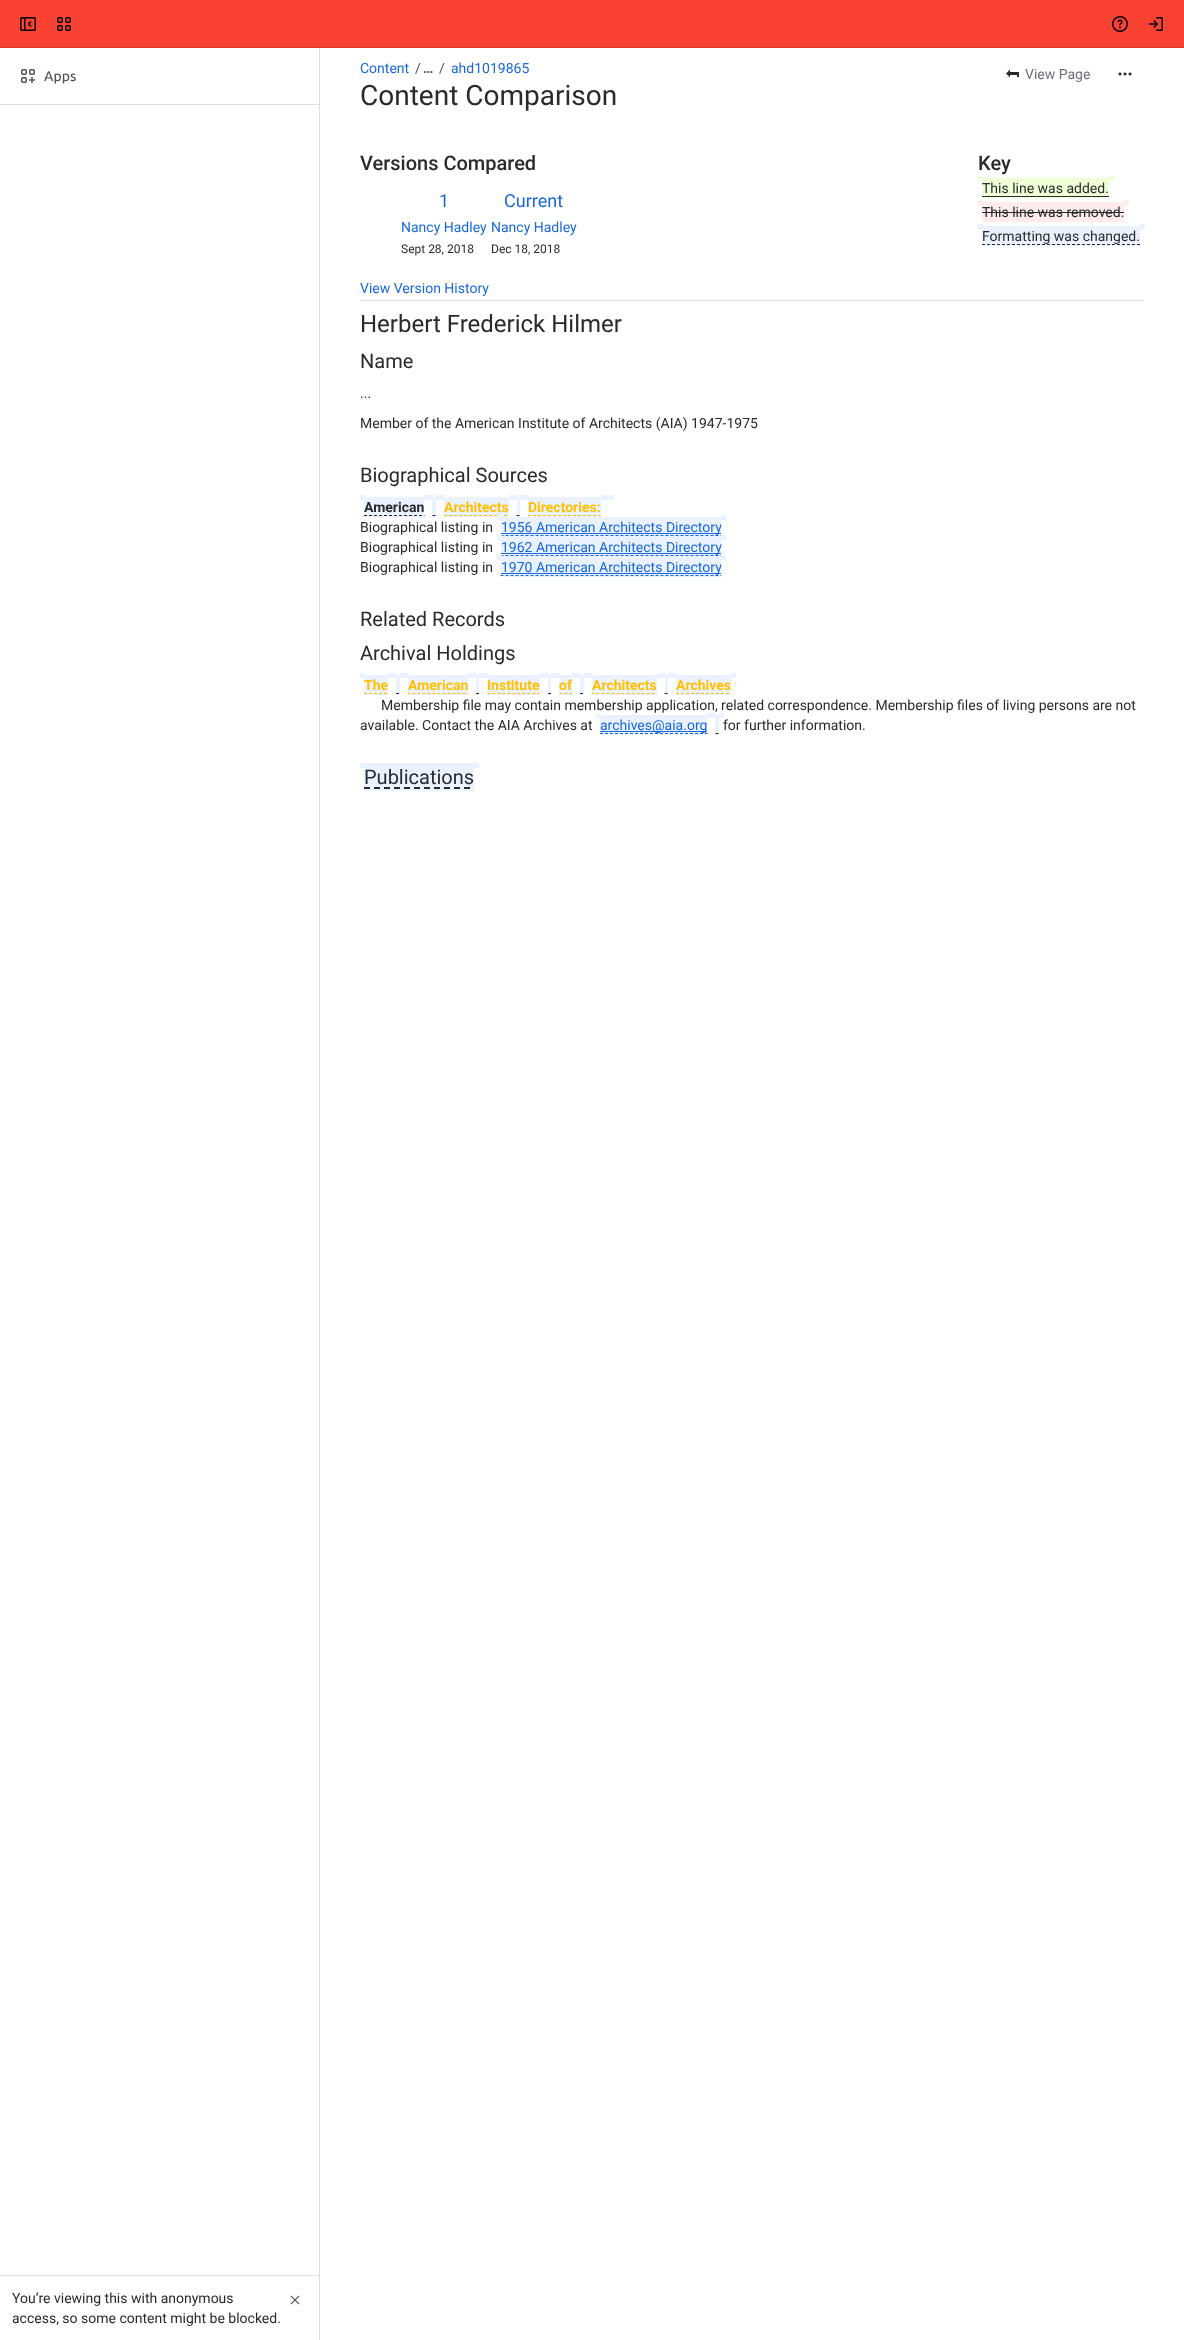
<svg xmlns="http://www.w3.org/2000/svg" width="1184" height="2340">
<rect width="100%" height="100%" fill="#fff"/>
<rect width="1184" height="47" fill="#fa4132"/>
<rect y="47" width="1184" height="1" fill="#d93a2d"/>
<image x="20" y="17" width="16" height="14" href="media/1.png"/>
<image x="57" y="17" width="14" height="14" href="media/2.png"/>
<image x="1112" y="16" width="16" height="16" href="media/3.png"/>
<image x="1149" y="17" width="14" height="14" href="media/4.png"/>
<rect x="319" y="48" width="1" height="2292" fill="#dddedd"/>
<image x="21" y="69" width="14" height="14" href="media/5.png"/>
<text x="44" y="81" style="font-family:Ubuntu;font-size:14px;font-weight:500;fill:#505258">Apps</text>
<rect y="104" width="319" height="1" fill="#dddedd"/>
<rect y="2275" width="319" height="1" fill="#dddedd"/>
<text x="12" y="2303" style="font-family:Roboto;font-size:14px;fill:#292a2e">You‘re viewing this with anonymous</text>
<text x="12" y="2323" style="font-family:Roboto;font-size:14px;fill:#292a2e">access, so some content might be blocked.</text>
<image x="290" y="2295" width="10" height="10" href="media/6.png"/>
<text x="360" y="73" style="font-family:Roboto;font-size:14px;fill:#1868db">Content</text>
<text x="415" y="73" style="font-family:Roboto;font-size:14px;fill:#505258">/</text>
<text x="423" y="73" style="font-family:Roboto;font-size:14px;font-weight:bold;fill:#505258">…</text>
<text x="439" y="73" style="font-family:Roboto;font-size:14px;fill:#505258">/</text>
<text x="451" y="73" style="font-family:Roboto;font-size:14px;fill:#1868db">ahd1019865</text>
<text x="360" y="105" style="font-family:Roboto;font-size:28px;fill:#292a2e">Content Comparison</text>
<image x="1006" y="69" width="13" height="9" href="media/7.png"/>
<text x="1025" y="79" style="font-family:Roboto;font-size:14px;fill:#6b6e76">View Page</text>
<image x="1118" y="72" width="14" height="4" href="media/8.png"/>
<rect x="360" y="300" width="784" height="1" fill="#dddedd"/>
<text x="360" y="170" style="font-family:Roboto;font-size:20px;font-weight:500;fill:#292a2e">Versions Compared</text>
<text x="978" y="170" style="font-family:Roboto;font-size:20px;font-weight:500;fill:#292a2e">Key</text>
<rect x="978" y="176" width="5" height="5" fill="#efffd6"/>
<rect x="982" y="178" width="127" height="20" fill="#efffd6"/>
<text x="982" y="193" style="font-family:Roboto;font-size:14px;fill:#292a2e">This line was added.</text>
<rect x="1109" y="176" width="5" height="5" fill="#efffd6"/>
<rect x="982" y="196" width="127" height="1" fill="#292a2e"/>
<rect x="978" y="200" width="5" height="5" fill="#ffeceb"/>
<rect x="982" y="202" width="142" height="20" fill="#ffeceb"/>
<text x="982" y="217" style="font-family:Roboto;font-size:14px;fill:#292a2e">This line was removed.</text>
<rect x="1124" y="200" width="5" height="5" fill="#ffeceb"/>
<rect x="982" y="212" width="142" height="1" fill="#292a2e"/>
<rect x="978" y="224" width="5" height="5" fill="#e9f2fe"/>
<rect x="982" y="226" width="158" height="20" fill="#e9f2fe"/>
<text x="982" y="241" style="font-family:Roboto;font-size:14px;fill:#292a2e">Formatting was changed.</text>
<rect x="1140" y="224" width="5" height="5" fill="#e9f2fe"/>
<path d="M982 244.5h158" fill="none" stroke="#292a2e" stroke-dasharray="3 2"/>
<text x="439" y="207" style="font-family:Roboto;font-size:18px;fill:#1868db">1</text>
<text x="504" y="207" style="font-family:Roboto;font-size:18px;fill:#1868db">Current</text>
<text x="401" y="232" style="font-family:Roboto;font-size:14px;fill:#1868db">Nancy Hadley</text>
<text x="491" y="232" style="font-family:Roboto;font-size:14px;fill:#1868db">Nancy Hadley</text>
<text x="401" y="253" style="font-family:Roboto;font-size:12px;fill:#292a2e">Sept 28, 2018</text>
<text x="491" y="253" style="font-family:Roboto;font-size:12px;fill:#292a2e">Dec 18, 2018</text>
<text x="360" y="293" style="font-family:Roboto;font-size:14px;fill:#1868db">View Version History</text>
<text x="360" y="332" style="font-family:Roboto;font-size:24px;fill:#292a2e">Herbert Frederick Hilmer</text>
<text x="360" y="368" style="font-family:Roboto;font-size:20px;fill:#292a2e">Name</text>
<text x="360" y="398" style="font-family:Roboto;font-size:14px;fill:#292a2e">...</text>
<text x="360" y="428" style="font-family:Roboto;font-size:14px;fill:#292a2e">Member of the American Institute of Architects (AIA) 1947-1975</text>
<text x="360" y="482" style="font-family:Roboto;font-size:20px;fill:#292a2e">Biographical Sources</text>
<rect x="360" y="495" width="5" height="5" fill="#e9f2fe"/>
<rect x="364" y="497" width="60" height="20" fill="#e9f2fe"/>
<text x="364" y="512" style="font-family:Roboto;font-size:14px;font-weight:bold;fill:#292a2e">American</text>
<rect x="424" y="495" width="9" height="5" fill="#e9f2fe"/>
<path d="M364 515.5h60.5" fill="none" stroke="#292a2e" stroke-dasharray="3 2"/>
<rect x="432" y="497" width="4" height="20" fill="#e9f2fe"/>
<rect x="436" y="495" width="9" height="5" fill="#e9f2fe"/>
<rect x="444" y="497" width="65" height="20" fill="#e9f2fe"/>
<text x="444" y="512" style="font-family:Roboto;font-size:14px;font-weight:bold;fill:#ffc000">Architects</text>
<rect x="509" y="495" width="9" height="5" fill="#e9f2fe"/>
<path d="M444 515.5h64.5" fill="none" stroke="#ffc000" stroke-dasharray="3 2"/>
<rect x="517" y="497" width="3" height="20" fill="#e9f2fe"/>
<rect x="520" y="495" width="9" height="5" fill="#e9f2fe"/>
<rect x="528" y="497" width="73" height="20" fill="#e9f2fe"/>
<text x="528" y="512" style="font-family:Roboto;font-size:14px;font-weight:bold;fill:#ffc000">Directories:</text>
<rect x="601" y="495" width="13" height="5" fill="#e9f2fe"/>
<path d="M528 515.5h72.5" fill="none" stroke="#ffc000" stroke-dasharray="3 2"/>
<path d="M432.5 515.5h3" fill="none" stroke="#292a2e"/>
<path d="M516.5 515.5h3" fill="none" stroke="#292a2e"/>
<text x="360" y="532" style="font-family:Roboto;font-size:14px;fill:#292a2e">Biographical listing in</text>
<rect x="497" y="515" width="5" height="5" fill="#e9f2fe"/>
<rect x="501" y="517" width="220" height="20" fill="#e9f2fe"/>
<rect x="501" y="533" width="220" height="1" fill="#1868db"/>
<text x="501" y="532" style="font-family:Roboto;font-size:14px;fill:#1868db">1956 American Architects Directory</text>
<rect x="721" y="515" width="5" height="5" fill="#e9f2fe"/>
<path d="M500.5 535.5h221" fill="none" stroke="#1868db" stroke-dasharray="3 2"/>
<text x="360" y="552" style="font-family:Roboto;font-size:14px;fill:#292a2e">Biographical listing in</text>
<rect x="497" y="535" width="5" height="5" fill="#e9f2fe"/>
<rect x="501" y="537" width="220" height="20" fill="#e9f2fe"/>
<rect x="501" y="553" width="220" height="1" fill="#1868db"/>
<text x="501" y="552" style="font-family:Roboto;font-size:14px;fill:#1868db">1962 American Architects Directory</text>
<rect x="721" y="535" width="5" height="5" fill="#e9f2fe"/>
<path d="M500.5 555.5h221" fill="none" stroke="#1868db" stroke-dasharray="3 2"/>
<text x="360" y="572" style="font-family:Roboto;font-size:14px;fill:#292a2e">Biographical listing in</text>
<rect x="497" y="555" width="5" height="5" fill="#e9f2fe"/>
<rect x="501" y="557" width="220" height="20" fill="#e9f2fe"/>
<rect x="501" y="573" width="220" height="1" fill="#1868db"/>
<text x="501" y="572" style="font-family:Roboto;font-size:14px;fill:#1868db">1970 American Architects Directory</text>
<rect x="721" y="555" width="5" height="5" fill="#e9f2fe"/>
<path d="M500.5 575.5h221" fill="none" stroke="#1868db" stroke-dasharray="3 2"/>
<text x="360" y="626" style="font-family:Roboto;font-size:20px;fill:#292a2e">Related Records</text>
<text x="360" y="660" style="font-family:Roboto;font-size:20px;fill:#292a2e">Archival Holdings</text>
<rect x="360" y="673" width="5" height="5" fill="#e9f2fe"/>
<rect x="364" y="675" width="24" height="20" fill="#e9f2fe"/>
<text x="364" y="690" style="font-family:Roboto;font-size:14px;font-weight:bold;fill:#ffc000">The</text>
<rect x="388" y="673" width="9" height="5" fill="#e9f2fe"/>
<path d="M364 693.5h24" fill="none" stroke="#ffc000" stroke-dasharray="3 2"/>
<rect x="396" y="675" width="4" height="20" fill="#e9f2fe"/>
<rect x="400" y="673" width="9" height="5" fill="#e9f2fe"/>
<rect x="408" y="675" width="60" height="20" fill="#e9f2fe"/>
<text x="408" y="690" style="font-family:Roboto;font-size:14px;font-weight:bold;fill:#ffc000">American</text>
<rect x="468" y="673" width="9" height="5" fill="#e9f2fe"/>
<path d="M407.5 693.5h60.5" fill="none" stroke="#ffc000" stroke-dasharray="3 2"/>
<rect x="476" y="675" width="3" height="20" fill="#e9f2fe"/>
<rect x="479" y="673" width="9" height="5" fill="#e9f2fe"/>
<rect x="487" y="675" width="53" height="20" fill="#e9f2fe"/>
<text x="487" y="690" style="font-family:Roboto;font-size:14px;font-weight:bold;fill:#ffc000">Institute</text>
<rect x="540" y="673" width="9" height="5" fill="#e9f2fe"/>
<path d="M487.5 693.5h52.5" fill="none" stroke="#ffc000" stroke-dasharray="3 2"/>
<rect x="548" y="675" width="3" height="20" fill="#e9f2fe"/>
<rect x="551" y="673" width="9" height="5" fill="#e9f2fe"/>
<rect x="559" y="675" width="13" height="20" fill="#e9f2fe"/>
<text x="559" y="690" style="font-family:Roboto;font-size:14px;font-weight:bold;fill:#ffc000">of</text>
<rect x="572" y="673" width="9" height="5" fill="#e9f2fe"/>
<path d="M559.5 693.5h3m2 0h3m2 0h2.5" fill="none" stroke="#ffc000"/>
<rect x="580" y="675" width="4" height="20" fill="#e9f2fe"/>
<rect x="584" y="673" width="9" height="5" fill="#e9f2fe"/>
<rect x="592" y="675" width="65" height="20" fill="#e9f2fe"/>
<text x="592" y="690" style="font-family:Roboto;font-size:14px;font-weight:bold;fill:#ffc000">Architects</text>
<rect x="657" y="673" width="9" height="5" fill="#e9f2fe"/>
<path d="M591.5 693.5h65" fill="none" stroke="#ffc000" stroke-dasharray="3 2"/>
<rect x="665" y="675" width="3" height="20" fill="#e9f2fe"/>
<rect x="668" y="673" width="9" height="5" fill="#e9f2fe"/>
<rect x="676" y="675" width="55" height="20" fill="#e9f2fe"/>
<text x="676" y="690" style="font-family:Roboto;font-size:14px;font-weight:bold;fill:#ffc000">Archives</text>
<rect x="731" y="673" width="5" height="5" fill="#e9f2fe"/>
<path d="M676 693.5h55" fill="none" stroke="#ffc000" stroke-dasharray="3 2"/>
<path d="M396 693.5h3" fill="none" stroke="#292a2e"/>
<path d="M476 693.5h3" fill="none" stroke="#292a2e"/>
<path d="M548 693.5h3" fill="none" stroke="#292a2e"/>
<path d="M580 693.5h3" fill="none" stroke="#292a2e"/>
<path d="M664.5 693.5h3" fill="none" stroke="#292a2e"/>
<text x="381" y="710" style="font-family:Roboto;font-size:14px;fill:#292a2e">Membership file may contain membership application, related correspondence. Membership files of living persons are not</text>
<text x="360" y="730" style="font-family:Roboto;font-size:14px;fill:#292a2e">available. Contact the AIA Archives at</text>
<rect x="596" y="713" width="5" height="5" fill="#e9f2fe"/>
<rect x="600" y="715" width="107" height="20" fill="#e9f2fe"/>
<path d="M600 733.5h107.5" fill="none" stroke="#1868db" stroke-dasharray="3 2"/>
<rect x="600" y="731" width="107" height="1" fill="#1868db"/>
<text x="600" y="730" style="font-family:Roboto;font-size:14px;fill:#1868db">archives@aia.org</text>
<rect x="707" y="713" width="9" height="5" fill="#e9f2fe"/>
<rect x="715" y="715" width="4" height="20" fill="#e9f2fe"/>
<rect x="719" y="713" width="5" height="5" fill="#e9f2fe"/>
<text x="723" y="730" style="font-family:Roboto;font-size:14px;fill:#292a2e">for further information.</text>
<path d="M715.5 733.5h3" fill="none" stroke="#292a2e"/>
<rect x="360" y="763" width="5" height="5" fill="#e9f2fe"/>
<rect x="364" y="763" width="110" height="28" fill="#e9f2fe"/>
<text x="364" y="784" style="font-family:Roboto;font-size:20px;fill:#292a2e">Publications</text>
<rect x="474" y="763" width="5" height="5" fill="#e9f2fe"/>
<path d="M364 788h110" fill="none" stroke="#292a2e" stroke-width="2" stroke-dasharray="6 4"/>
</svg>
